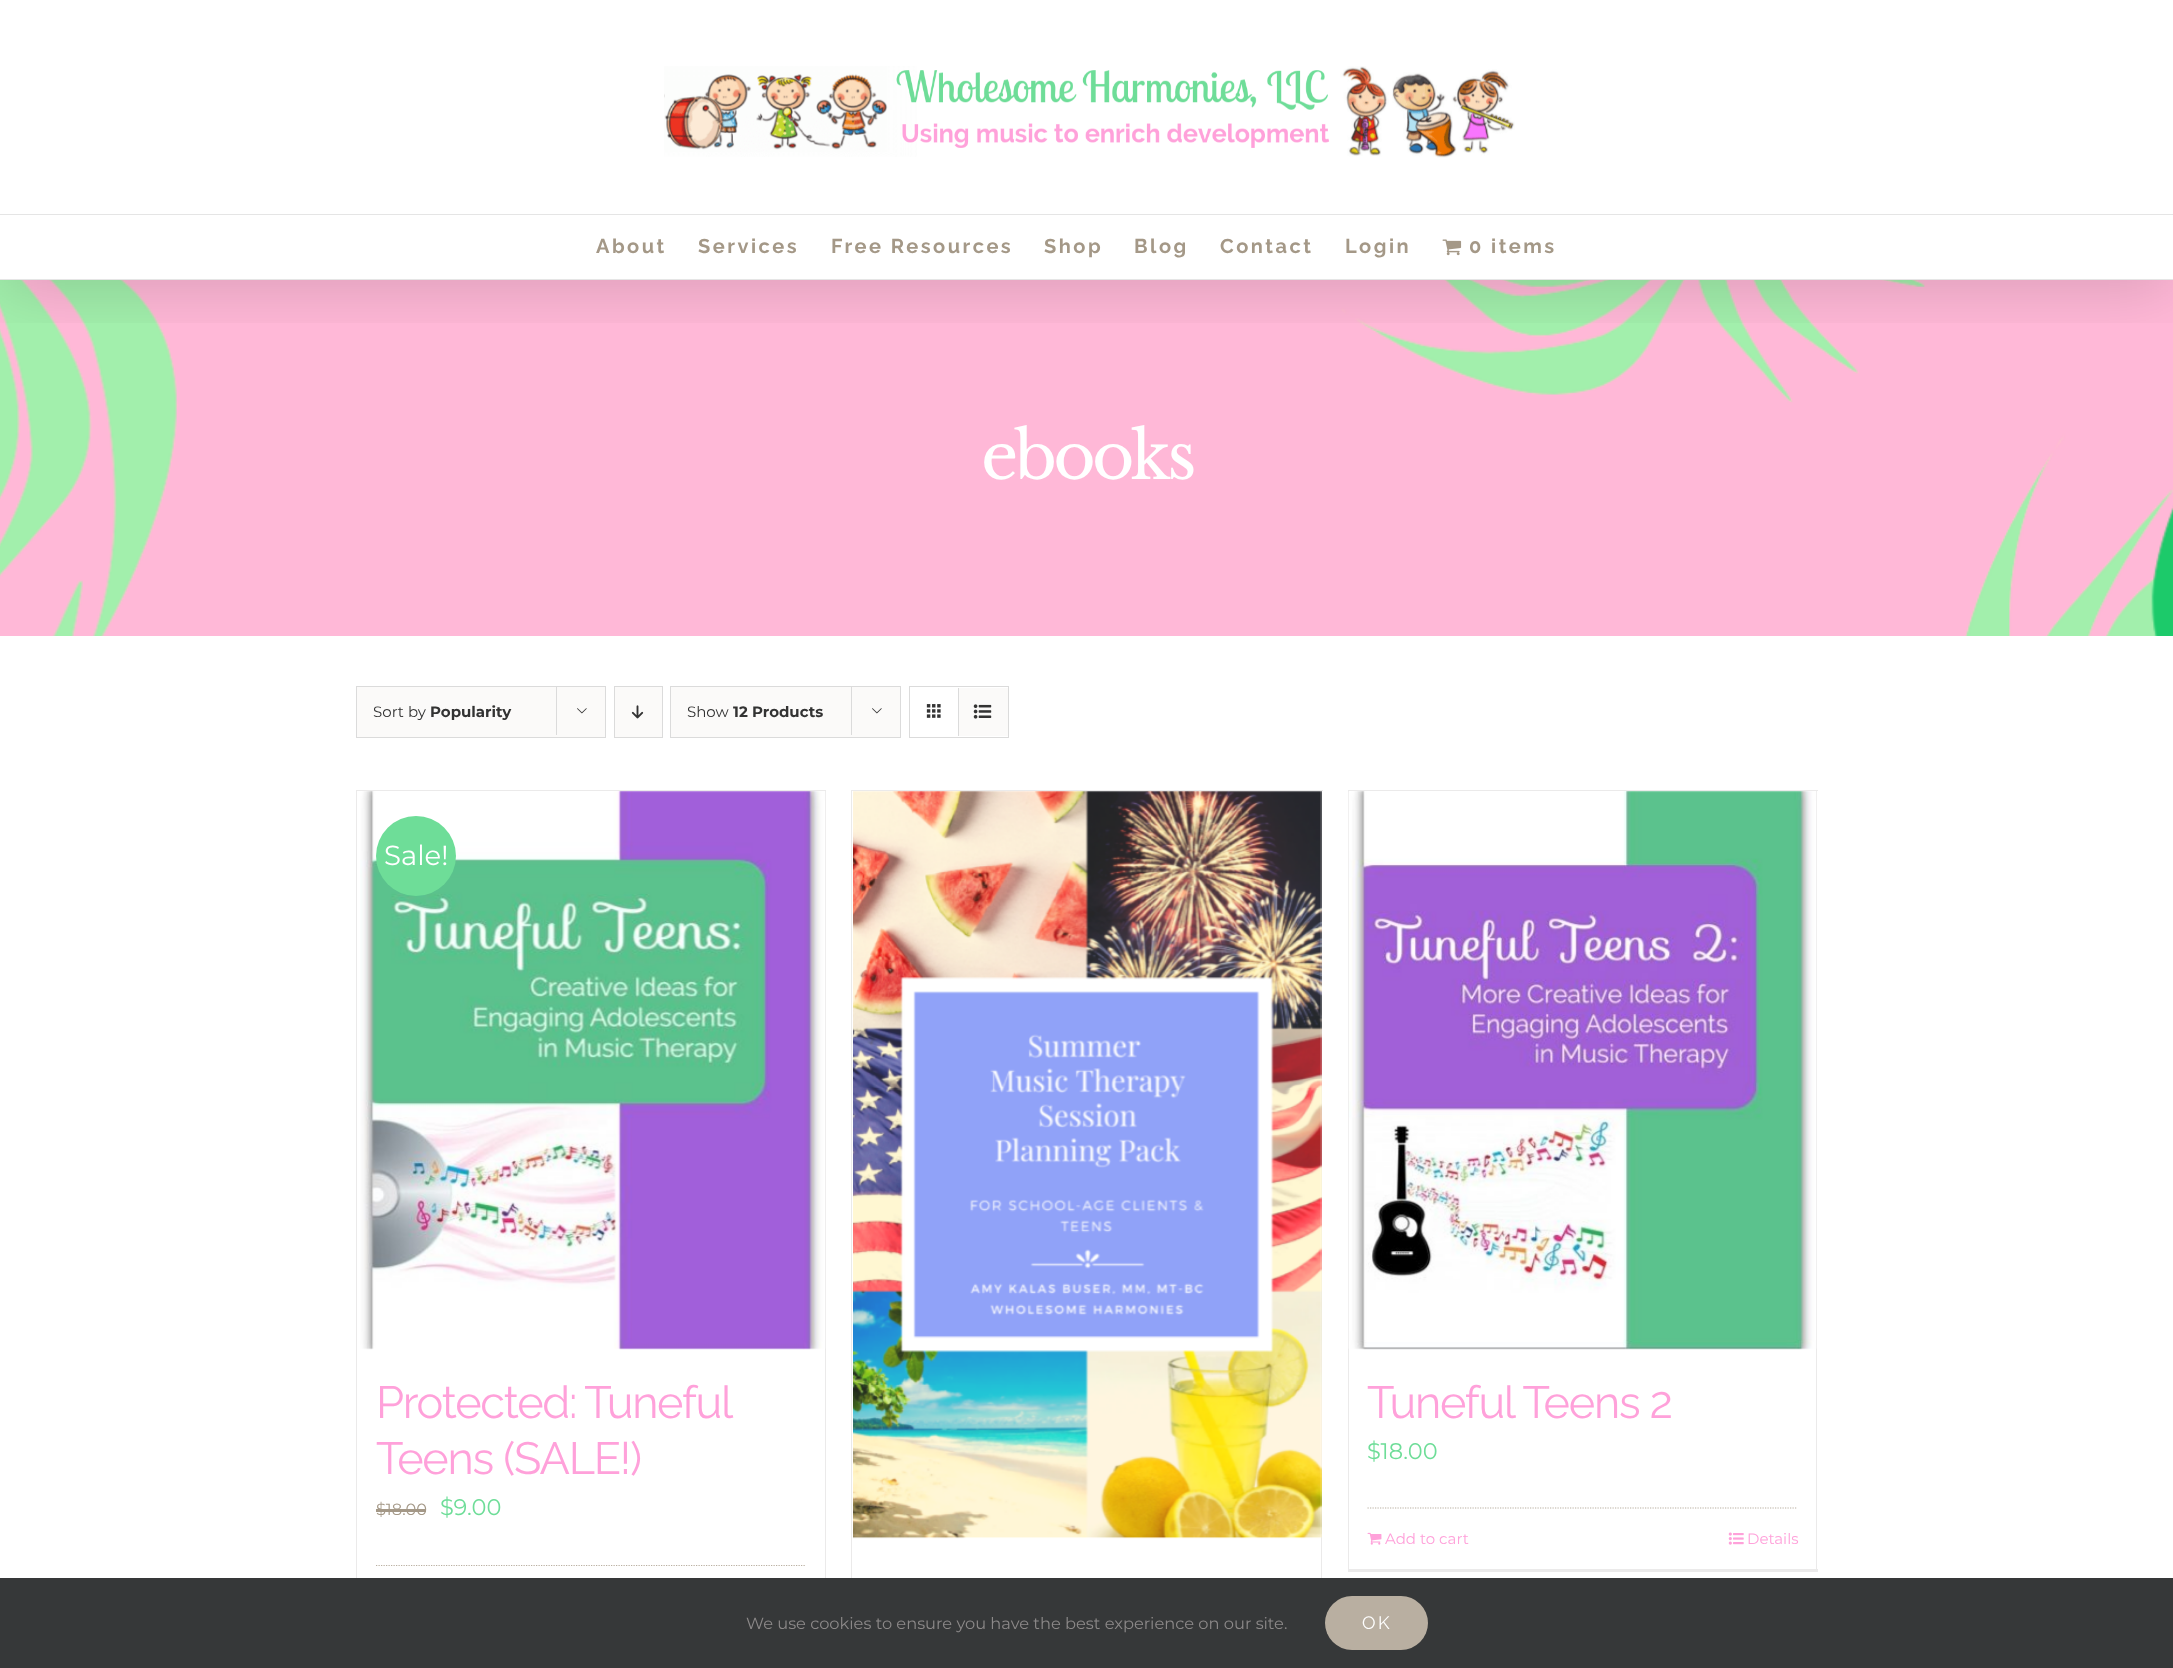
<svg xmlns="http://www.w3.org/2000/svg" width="2173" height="1668">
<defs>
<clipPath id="clip1"><rect x="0" y="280" width="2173" height="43"/></clipPath>
</defs>
<rect width="100%" height="100%" fill="#fff"/>
<image x="0" y="280" width="2173" height="356" href="media/3.png"/>
<g clip-path="url(#clip1)">
<rect x="3" y="15" width="2168" height="275" fill="#00000024" filter="blur(31px)"/>
</g>
<rect y="214" width="2173" height="1" fill="#e5e5e5"/>
<image x="664" y="66" width="851" height="92" href="media/1.png"/>
<rect y="279" width="2173" height="1" fill="#e5e5e5"/>
<text x="596" y="253" style="font-family:Raleway;font-size:20px;font-weight:bold;letter-spacing:2.5px;fill:#a49887">About</text>
<text x="698" y="253" style="font-family:Raleway;font-size:20px;font-weight:bold;letter-spacing:2.5px;fill:#a49887">Services</text>
<text x="831" y="253" style="font-family:Raleway;font-size:20px;font-weight:bold;letter-spacing:2.5px;fill:#a49887">Free Resources</text>
<text x="1044" y="253" style="font-family:Raleway;font-size:20px;font-weight:bold;letter-spacing:2.5px;fill:#a49887">Shop</text>
<text x="1134" y="253" style="font-family:Raleway;font-size:20px;font-weight:bold;letter-spacing:2.5px;fill:#a49887">Blog</text>
<text x="1220" y="253" style="font-family:Raleway;font-size:20px;font-weight:bold;letter-spacing:2.5px;fill:#a49887">Contact</text>
<text x="1345" y="253" style="font-family:Raleway;font-size:20px;font-weight:bold;letter-spacing:2.5px;fill:#a49887">Login</text>
<image x="1442" y="239" width="20" height="17" href="media/2.png"/>
<text x="1469" y="253" style="font-family:Raleway;font-size:20px;font-weight:bold;letter-spacing:2.5px;fill:#a49887">0 items</text>
<text x="981" y="479" style="font-family:Libre Baskerville;font-size:65px;letter-spacing:-3.75px;fill:#fff">ebooks</text>
<rect x="356.5" y="686.5" width="249" height="51" fill="#fbfaf9" stroke="#dbdbdb"/>
<text x="373" y="717" style="font-family:Montserrat;font-size:15px;fill:#333">Sort by</text>
<text x="430" y="717" style="font-family:Montserrat;font-size:15px;font-weight:bold;fill:#333">Popularity</text>
<rect x="556" y="686" width="1" height="49" fill="#dbdbdb"/>
<image x="577" y="708" width="10" height="6" href="media/4.png"/>
<rect x="614.5" y="686.5" width="48" height="51" fill="#fbfaf9" stroke="#dbdbdb"/>
<image x="631" y="705" width="13" height="14" href="media/5.png"/>
<rect x="670.5" y="686.5" width="230" height="51" fill="#fbfaf9" stroke="#dbdbdb"/>
<text x="687" y="717" style="font-family:Montserrat;font-size:15px;fill:#333">Show</text>
<text x="733" y="717" style="font-family:Montserrat;font-size:15px;font-weight:bold;fill:#333">12 Products</text>
<rect x="851" y="686" width="1" height="49" fill="#dbdbdb"/>
<image x="872" y="708" width="10" height="6" href="media/4.png"/>
<rect x="909.5" y="686.5" width="99" height="51" fill="none" stroke="#dbdbdb"/>
<rect x="958" y="688" width="1" height="48" fill="#dbdbdb"/>
<image x="926" y="704" width="15" height="14" href="media/6.png"/>
<rect x="959" y="688" width="49" height="48" fill="#fbfaf9"/>
<image x="973" y="704" width="19" height="15" href="media/7.png"/>
<rect x="356" y="790" width="470" height="1" fill="#ebeaea"/>
<rect x="825" y="790" width="1" height="788" fill="#ebeaea"/>
<rect x="356" y="790" width="1" height="788" fill="#ebeaea"/>
<image x="360" y="791" width="466" height="559" href="media/8.png"/>
<circle cx="416" cy="856" r="40" fill="#6edd98"/>
<text x="384" y="865" style="font-family:Montserrat;font-size:27.5px;fill:#fff">Sale!</text>
<text x="376" y="1418" word-spacing="-1" style="font-family:Raleway;font-size:45px;letter-spacing:-1.25px;fill:#ffa1da">Protected: Tuneful</text>
<text x="376" y="1474" style="font-family:Raleway;font-size:45px;letter-spacing:-1.25px;fill:#ffa1da">Teens (SALE!)</text>
<text x="376" y="1515" style="font-family:Montserrat;font-size:16.25px;fill:#a49887">$18.00</text>
<rect x="376" y="1509" width="50" height="3" fill="#a49887"/>
<text x="440" y="1515" style="font-family:Montserrat;font-size:22.5px;fill:#6edd98">$9.00</text>
<path d="M376 1565.5h430" fill="none" stroke="#b9afa1" stroke-width="1.2" stroke-dasharray="1.25 1.25"/>
<rect x="851" y="790" width="472" height="1" fill="#ebeaea"/>
<rect x="1321" y="790" width="1" height="788" fill="#ebeaea"/>
<rect x="851" y="790" width="1" height="788" fill="#ebeaea"/>
<image x="853" y="791" width="469" height="748" href="media/9.png"/>
<rect x="1348" y="790" width="470" height="1" fill="#ebeaea"/>
<rect x="1816" y="790" width="1" height="781" fill="#ebeaea"/>
<rect x="1348" y="1569" width="470" height="3" fill="#ebeaea"/>
<rect x="1348" y="790" width="1" height="781" fill="#ebeaea"/>
<image x="1348" y="791" width="469" height="559" href="media/10.png"/>
<text x="1367" y="1418" style="font-family:Raleway;font-size:45px;letter-spacing:-1.25px;fill:#ffa1da">Tuneful Teens 2</text>
<text x="1367" y="1459" style="font-family:Montserrat;font-size:22.5px;fill:#6edd98">$18.00</text>
<path d="M1367.5 1508h430" fill="none" stroke="#b9afa1" stroke-width="1.2" stroke-dasharray="1.25 1.25"/>
<image x="1367" y="1532" width="15" height="13" href="media/11.png"/>
<text x="1385" y="1544" style="font-family:Montserrat;font-size:15px;fill:#ffa1da">Add to cart</text>
<image x="1728" y="1532" width="16" height="13" href="media/12.png"/>
<text x="1747" y="1544" style="font-family:Montserrat;font-size:15px;fill:#ffa1da">Details</text>
<rect y="1578" width="2173" height="90" fill="#363839"/>
<text x="746" y="1629" style="font-family:Montserrat;font-size:16.25px;fill:#8c8989">We use cookies to ensure you have the best experience on our site.</text>
<rect x="1325" y="1596" width="103" height="54" rx="27" fill="#b9afa1"/>
<text x="1362" y="1629" style="font-family:Raleway;font-size:18px;letter-spacing:2.5px;fill:#fff">OK</text>
</svg>
